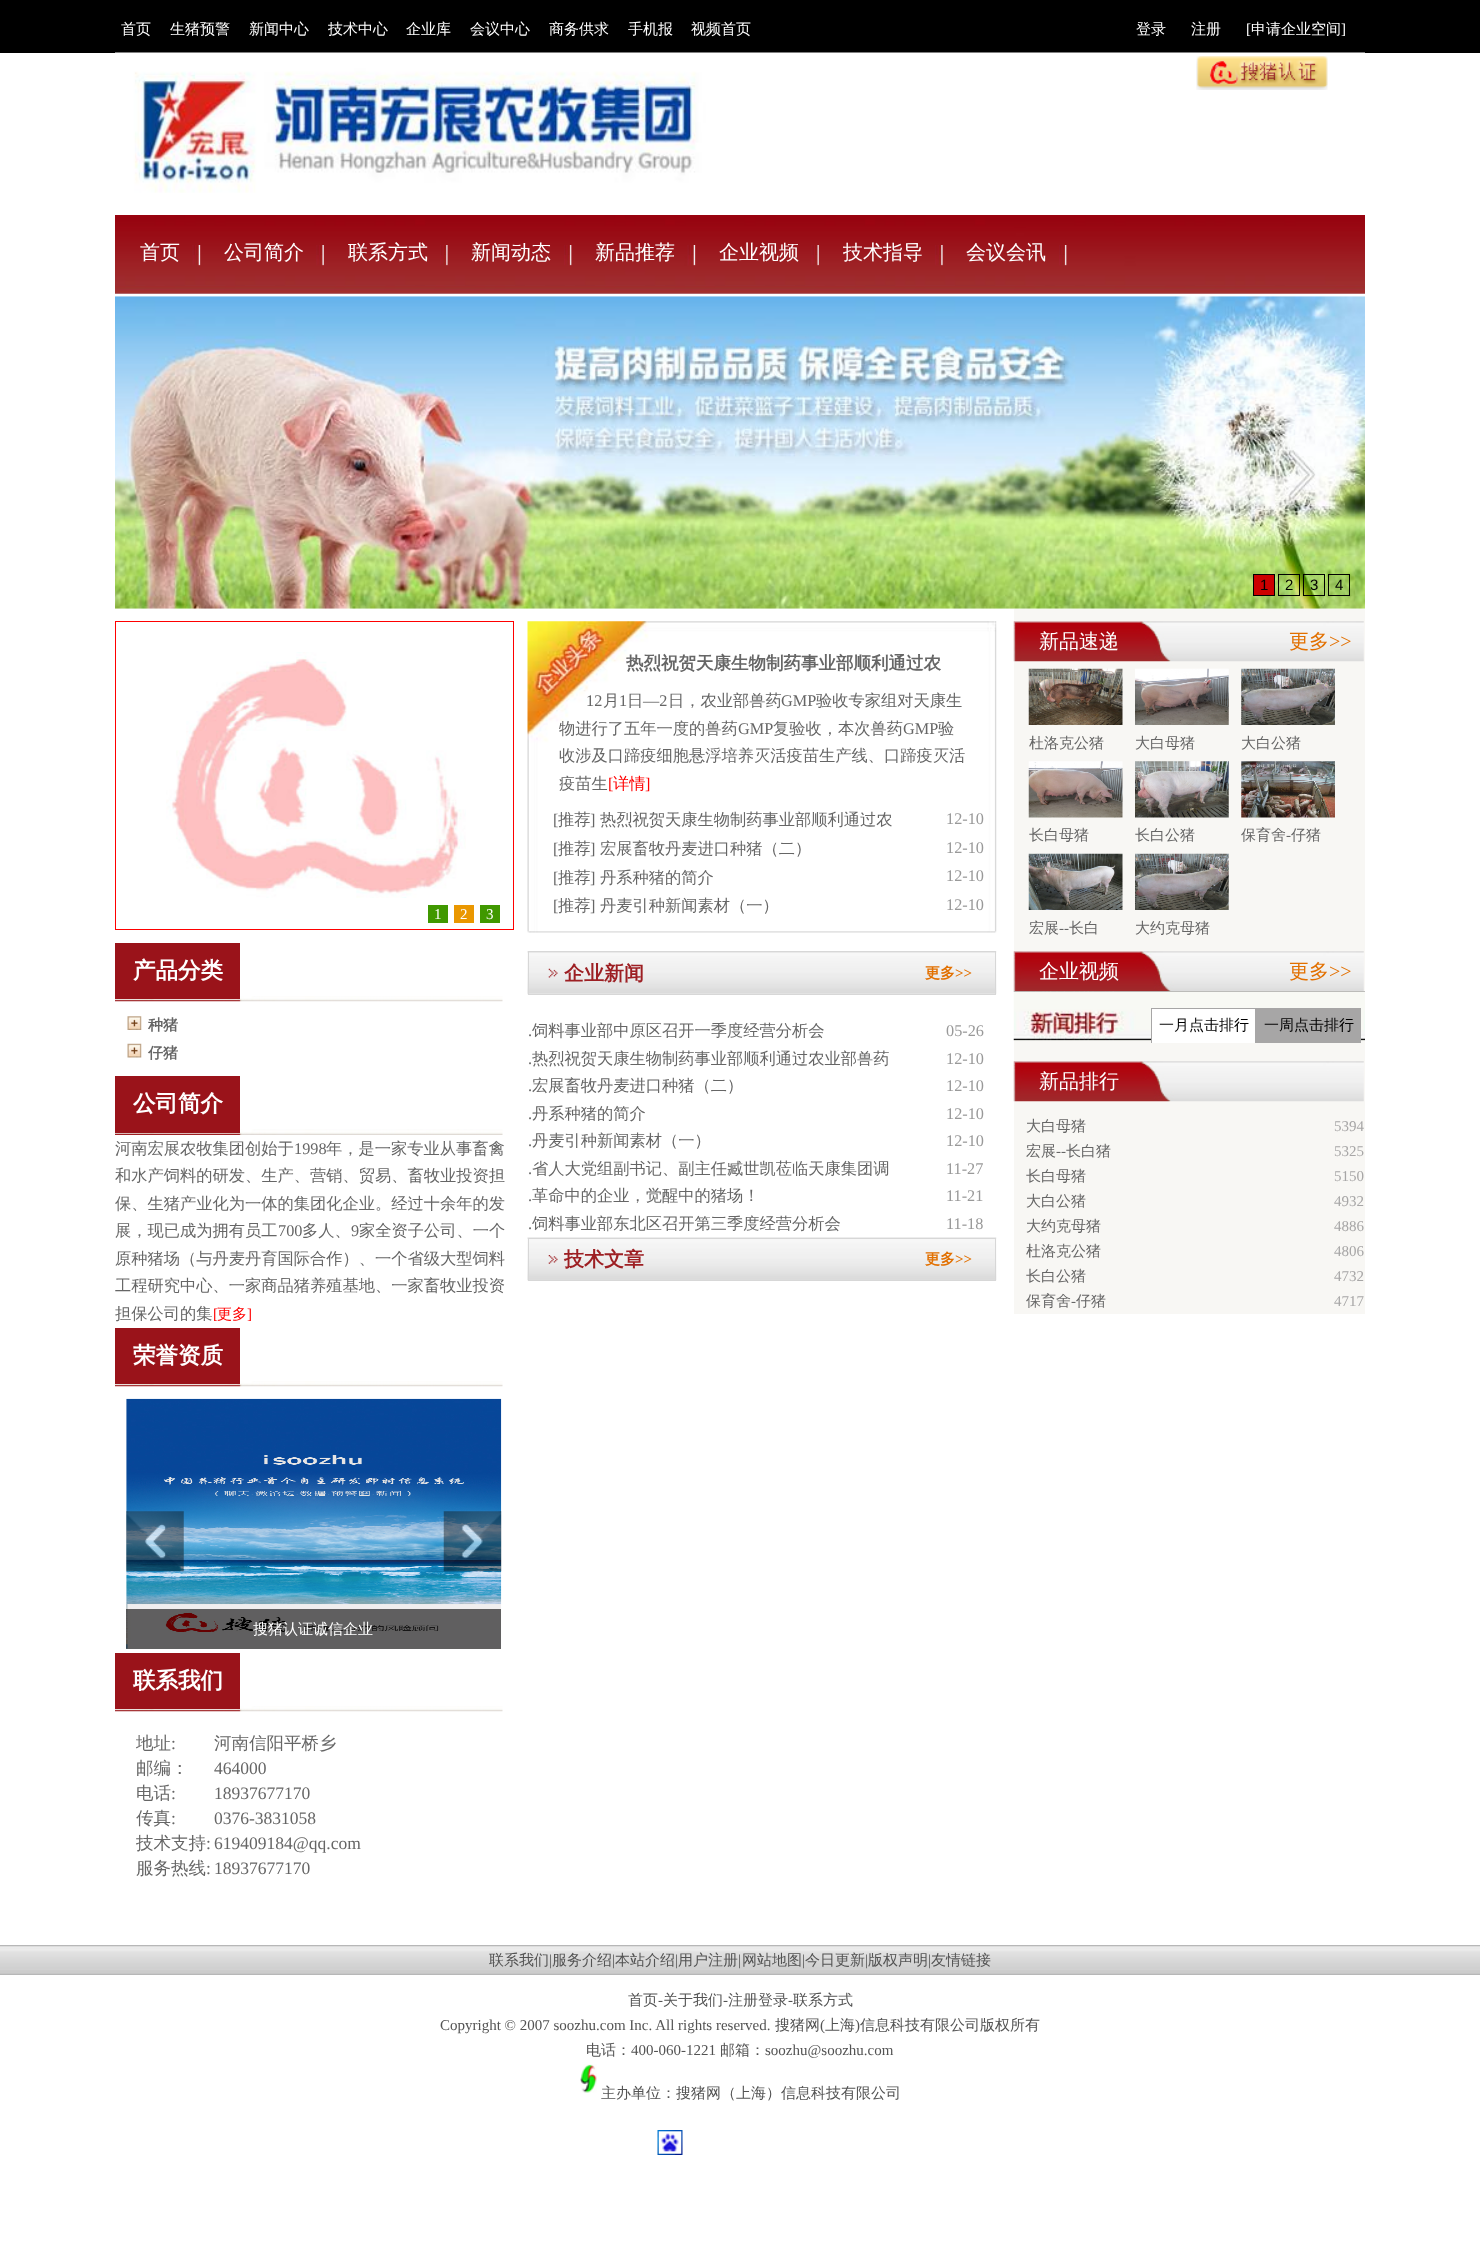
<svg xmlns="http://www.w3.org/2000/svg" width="1480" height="2267">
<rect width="100%" height="100%" fill="#fff"/>
<rect width="1480" height="53" fill="#000"/>
<text x="121" y="34" style="font-family:WenQuanYi Zen Hei;font-size:15px;font-weight:500;fill:#fff">首页</text>
<text x="170" y="34" style="font-family:WenQuanYi Zen Hei;font-size:15px;font-weight:500;fill:#fff">生猪预警</text>
<text x="249" y="34" style="font-family:WenQuanYi Zen Hei;font-size:15px;font-weight:500;fill:#fff">新闻中心</text>
<text x="328" y="34" style="font-family:WenQuanYi Zen Hei;font-size:15px;font-weight:500;fill:#fff">技术中心</text>
<text x="406" y="34" style="font-family:WenQuanYi Zen Hei;font-size:15px;font-weight:500;fill:#fff">企业库</text>
<text x="470" y="34" style="font-family:WenQuanYi Zen Hei;font-size:15px;font-weight:500;fill:#fff">会议中心</text>
<text x="549" y="34" style="font-family:WenQuanYi Zen Hei;font-size:15px;font-weight:500;fill:#fff">商务供求</text>
<text x="628" y="34" style="font-family:WenQuanYi Zen Hei;font-size:15px;font-weight:500;fill:#fff">手机报</text>
<text x="691" y="34" style="font-family:WenQuanYi Zen Hei;font-size:15px;font-weight:500;fill:#fff">视频首页</text>
<text x="1136" y="34" style="font-family:WenQuanYi Zen Hei;font-size:15px;font-weight:500;fill:#fff">登录</text>
<text x="1191" y="34" style="font-family:WenQuanYi Zen Hei;font-size:15px;font-weight:500;fill:#fff">注册</text>
<text x="1246" y="34" style="font-family:Liberation Serif;font-size:15px;fill:#fff">[</text>
<text x="1251" y="34" style="font-family:WenQuanYi Zen Hei;font-size:15px;font-weight:500;fill:#fff">申请企业空间</text>
<text x="1341" y="34" style="font-family:Liberation Serif;font-size:15px;fill:#fff">]</text>
<image x="115" y="52" width="1250" height="141" href="media/1.png"/>
<image x="1196" y="56" width="132" height="34" href="media/2.png"/>
<image x="115" y="215" width="1250" height="79" href="media/3.png"/>
<image x="192" y="245" width="9" height="21" href="media/4.png"/>
<text x="140" y="259" style="font-family:WenQuanYi Zen Hei;font-size:20px;font-weight:500;fill:#fff">首页</text>
<image x="316" y="245" width="8" height="21" href="media/5.png"/>
<text x="224" y="259" style="font-family:WenQuanYi Zen Hei;font-size:20px;font-weight:500;fill:#fff">公司简介</text>
<image x="440" y="245" width="8" height="21" href="media/6.png"/>
<text x="348" y="259" style="font-family:WenQuanYi Zen Hei;font-size:20px;font-weight:500;fill:#fff">联系方式</text>
<image x="564" y="245" width="8" height="21" href="media/7.png"/>
<text x="471" y="259" style="font-family:WenQuanYi Zen Hei;font-size:20px;font-weight:500;fill:#fff">新闻动态</text>
<image x="687" y="245" width="9" height="21" href="media/4.png"/>
<text x="595" y="259" style="font-family:WenQuanYi Zen Hei;font-size:20px;font-weight:500;fill:#fff">新品推荐</text>
<image x="811" y="245" width="8" height="21" href="media/8.png"/>
<text x="719" y="259" style="font-family:WenQuanYi Zen Hei;font-size:20px;font-weight:500;fill:#fff">企业视频</text>
<image x="935" y="245" width="8" height="21" href="media/9.png"/>
<text x="843" y="259" style="font-family:WenQuanYi Zen Hei;font-size:20px;font-weight:500;fill:#fff">技术指导</text>
<image x="1059" y="245" width="8" height="21" href="media/7.png"/>
<text x="966" y="259" style="font-family:WenQuanYi Zen Hei;font-size:20px;font-weight:500;fill:#fff">会议会讯</text>
<image x="115" y="296" width="1250" height="313" href="media/10.png"/>
<rect x="1253.5" y="574.5" width="21" height="21" fill="#c00" stroke="#000"/>
<text x="1260" y="590" style="font-family:Liberation Sans;font-size:15px;fill:#000">1</text>
<rect x="1278.5" y="574.5" width="21" height="21" fill="none" stroke="#000"/>
<text x="1285" y="590" style="font-family:Liberation Sans;font-size:15px;fill:#000">2</text>
<rect x="1303.5" y="574.5" width="21" height="21" fill="none" stroke="#000"/>
<text x="1310" y="590" style="font-family:Liberation Sans;font-size:15px;fill:#000">3</text>
<rect x="1328.5" y="574.5" width="21" height="21" fill="none" stroke="#000"/>
<text x="1335" y="590" style="font-family:Liberation Sans;font-size:15px;fill:#000">4</text>
<rect x="115.5" y="621.5" width="398" height="308" fill="none" stroke="#f00"/>
<image x="166" y="652" width="300" height="246" href="media/11.png"/>
<rect x="428" y="905" width="20" height="18" fill="#409800"/>
<text x="434" y="919" style="font-family:Liberation Serif;font-size:15px;fill:#fff">1</text>
<rect x="454" y="905" width="20" height="18" fill="#ea9700"/>
<text x="460" y="919" style="font-family:Liberation Serif;font-size:15px;fill:#fff">2</text>
<rect x="480" y="905" width="20" height="18" fill="#409800"/>
<text x="486" y="919" style="font-family:Liberation Serif;font-size:15px;fill:#fff">3</text>
<image x="115" y="996" width="388" height="6" href="media/12.png"/>
<rect x="115" y="943" width="125" height="56" fill="#9a131a"/>
<text x="133" y="978" style="font-family:WenQuanYi Zen Hei;font-size:22.5px;font-weight:bold;fill:#fff">产品分类</text>
<image x="127" y="1016" width="15" height="14" href="media/13.png"/>
<text x="148" y="1030" style="font-family:WenQuanYi Zen Hei;font-size:15px;font-weight:bold;fill:#666">种猪</text>
<image x="127" y="1043" width="15" height="15" href="media/14.png"/>
<text x="148" y="1058" style="font-family:WenQuanYi Zen Hei;font-size:15px;font-weight:bold;fill:#666">仔猪</text>
<image x="115" y="1129" width="388" height="6" href="media/15.png"/>
<rect x="115" y="1076" width="125" height="57" fill="#9a131a"/>
<text x="133" y="1111" style="font-family:WenQuanYi Zen Hei;font-size:22.5px;font-weight:bold;fill:#fff">公司简介</text>
<text x="115" y="1154" style="font-family:WenQuanYi Zen Hei;font-size:16.25px;font-weight:500;fill:#666">河南宏展农牧集团创始于</text>
<text x="294" y="1154" style="font-family:Liberation Serif;font-size:16.25px;fill:#666">1998</text>
<text x="326" y="1154" style="font-family:WenQuanYi Zen Hei;font-size:16.25px;font-weight:500;fill:#666">年，是一家专业从事畜禽</text>
<text x="115" y="1181" style="font-family:WenQuanYi Zen Hei;font-size:16.25px;font-weight:500;fill:#666">和水产饲料的研发、生产、营销、贸易、畜牧业投资担</text>
<text x="115" y="1209" style="font-family:WenQuanYi Zen Hei;font-size:16.25px;font-weight:500;fill:#666">保、生猪产业化为一体的集团化企业。经过十余年的发</text>
<text x="115" y="1236" style="font-family:WenQuanYi Zen Hei;font-size:16.25px;font-weight:500;fill:#666">展，现已成为拥有员工</text>
<text x="278" y="1236" style="font-family:Liberation Serif;font-size:16.25px;fill:#666">700</text>
<text x="302" y="1236" style="font-family:WenQuanYi Zen Hei;font-size:16.25px;font-weight:500;fill:#666">多人、</text>
<text x="351" y="1236" style="font-family:Liberation Serif;font-size:16.25px;fill:#666">9</text>
<text x="359" y="1236" style="font-family:WenQuanYi Zen Hei;font-size:16.25px;font-weight:500;fill:#666">家全资子公司、一个</text>
<text x="115" y="1264" style="font-family:WenQuanYi Zen Hei;font-size:16.25px;font-weight:500;fill:#666">原种猪场（与丹麦丹育国际合作）、一个省级大型饲料</text>
<text x="115" y="1291" style="font-family:WenQuanYi Zen Hei;font-size:16.25px;font-weight:500;fill:#666">工程研究中心、一家商品猪养殖基地、一家畜牧业投资</text>
<text x="115" y="1319" style="font-family:WenQuanYi Zen Hei;font-size:16.25px;font-weight:500;fill:#666">担保公司的集</text>
<text x="213" y="1319" style="font-family:Liberation Serif;font-size:15px;fill:#f00">[</text>
<text x="217" y="1319" style="font-family:WenQuanYi Zen Hei;font-size:15px;font-weight:500;fill:#f00">更多</text>
<text x="247" y="1319" style="font-family:Liberation Serif;font-size:15px;fill:#f00">]</text>
<image x="115" y="1381" width="388" height="6" href="media/12.png"/>
<rect x="115" y="1328" width="125" height="56" fill="#9a131a"/>
<text x="133" y="1363" style="font-family:WenQuanYi Zen Hei;font-size:22.5px;font-weight:bold;fill:#fff">荣誉资质</text>
<rect x="126" y="1399" width="375" height="250" fill="#f7f7f7"/>
<image x="126" y="1398" width="376" height="251" href="media/18.png"/>
<image x="126" y="1511" width="58" height="61" href="media/16.png"/>
<image x="443" y="1511" width="59" height="61" href="media/17.png"/>
<rect x="126" y="1609" width="375" height="40" fill="#00000099"/>
<text x="253" y="1634" style="font-family:WenQuanYi Zen Hei;font-size:15px;font-weight:500;fill:#fff">搜猪认证诚信企业</text>
<image x="115" y="1706" width="388" height="6" href="media/12.png"/>
<rect x="115" y="1653" width="125" height="56" fill="#9a131a"/>
<text x="133" y="1688" style="font-family:WenQuanYi Zen Hei;font-size:22.5px;font-weight:bold;fill:#fff">联系我们</text>
<text x="136" y="1749" style="font-family:WenQuanYi Zen Hei;font-size:17.5px;font-weight:500;fill:#666">地址</text>
<text x="171" y="1749" style="font-family:Liberation Serif;font-size:17.5px;fill:#666">:</text>
<text x="214" y="1749" style="font-family:WenQuanYi Zen Hei;font-size:17.5px;font-weight:500;fill:#666">河南信阳平桥乡</text>
<text x="136" y="1774" style="font-family:WenQuanYi Zen Hei;font-size:17.5px;font-weight:500;fill:#666">邮编：</text>
<text x="214" y="1774" style="font-family:Liberation Serif;font-size:17.5px;fill:#666">464000</text>
<text x="136" y="1799" style="font-family:WenQuanYi Zen Hei;font-size:17.5px;font-weight:500;fill:#666">电话</text>
<text x="171" y="1799" style="font-family:Liberation Serif;font-size:17.5px;fill:#666">:</text>
<text x="214" y="1799" style="font-family:Liberation Serif;font-size:17.5px;fill:#666">18937677170</text>
<text x="136" y="1824" style="font-family:WenQuanYi Zen Hei;font-size:17.5px;font-weight:500;fill:#666">传真</text>
<text x="171" y="1824" style="font-family:Liberation Serif;font-size:17.5px;fill:#666">:</text>
<text x="214" y="1824" style="font-family:Liberation Serif;font-size:17.5px;fill:#666">0376-3831058</text>
<text x="136" y="1849" style="font-family:WenQuanYi Zen Hei;font-size:17.5px;font-weight:500;fill:#666">技术支持</text>
<text x="206" y="1849" style="font-family:Liberation Serif;font-size:17.5px;fill:#666">:</text>
<text x="214" y="1849" style="font-family:Liberation Serif;font-size:17.5px;fill:#666">619409184@qq.com</text>
<text x="136" y="1874" style="font-family:WenQuanYi Zen Hei;font-size:17.5px;font-weight:500;fill:#666">服务热线</text>
<text x="206" y="1874" style="font-family:Liberation Serif;font-size:17.5px;fill:#666">:</text>
<text x="214" y="1874" style="font-family:Liberation Serif;font-size:17.5px;fill:#666">18937677170</text>
<image x="527" y="621" width="470" height="312" href="media/19.png"/>
<text x="626" y="669" style="font-family:WenQuanYi Zen Hei;font-size:17.5px;font-weight:bold;fill:#666">热烈祝贺天康生物制药事业部顺利通过农</text>
<text x="586" y="706" style="font-family:Liberation Serif;font-size:16.25px;fill:#666">12</text>
<text x="603" y="706" style="font-family:WenQuanYi Zen Hei;font-size:16.25px;font-weight:500;fill:#666">月</text>
<text x="619" y="706" style="font-family:Liberation Serif;font-size:16.25px;fill:#666">1</text>
<text x="627" y="706" style="font-family:WenQuanYi Zen Hei;font-size:16.25px;font-weight:500;fill:#666">日</text>
<text x="643" y="706" style="font-family:Liberation Serif;font-size:16.25px;fill:#666">—2</text>
<text x="668" y="706" style="font-family:WenQuanYi Zen Hei;font-size:16.25px;font-weight:500;fill:#666">日，农业部兽药</text>
<text x="781" y="706" style="font-family:Liberation Serif;font-size:16.25px;fill:#666">GMP</text>
<text x="816" y="706" style="font-family:WenQuanYi Zen Hei;font-size:16.25px;font-weight:500;fill:#666">验收专家组对天康生</text>
<text x="559" y="734" style="font-family:WenQuanYi Zen Hei;font-size:16.25px;font-weight:500;fill:#666">物进行了五年一度的兽药</text>
<text x="738" y="734" style="font-family:Liberation Serif;font-size:16.25px;fill:#666">GMP</text>
<text x="773" y="734" style="font-family:WenQuanYi Zen Hei;font-size:16.25px;font-weight:500;fill:#666">复验收，本次兽药</text>
<text x="903" y="734" style="font-family:Liberation Serif;font-size:16.25px;fill:#666">GMP</text>
<text x="938" y="734" style="font-family:WenQuanYi Zen Hei;font-size:16.25px;font-weight:500;fill:#666">验</text>
<text x="559" y="761" style="font-family:WenQuanYi Zen Hei;font-size:16.25px;font-weight:500;fill:#666">收涉及口蹄疫细胞悬浮培养灭活疫苗生产线、口蹄疫灭活</text>
<text x="559" y="789" style="font-family:WenQuanYi Zen Hei;font-size:16.25px;font-weight:500;fill:#666">疫苗生</text>
<text x="608" y="789" style="font-family:Liberation Serif;font-size:16.25px;fill:#f00">[</text>
<text x="613" y="789" style="font-family:WenQuanYi Zen Hei;font-size:16.25px;font-weight:500;fill:#f00">详情</text>
<text x="645" y="789" style="font-family:Liberation Serif;font-size:16.25px;fill:#f00">]</text>
<text x="553" y="825" style="font-family:Liberation Serif;font-size:16.25px;fill:#666">[</text>
<text x="558" y="825" style="font-family:WenQuanYi Zen Hei;font-size:16.25px;font-weight:500;fill:#666">推荐</text>
<text x="590" y="825" style="font-family:Liberation Serif;font-size:16.25px;fill:#666">]</text>
<text x="600" y="825" style="font-family:WenQuanYi Zen Hei;font-size:16.25px;font-weight:500;fill:#666">热烈祝贺天康生物制药事业部顺利通过农</text>
<text x="946" y="824" style="font-family:Liberation Serif;font-size:16.25px;fill:#999">12-10</text>
<text x="553" y="854" style="font-family:Liberation Serif;font-size:16.25px;fill:#666">[</text>
<text x="558" y="854" style="font-family:WenQuanYi Zen Hei;font-size:16.25px;font-weight:500;fill:#666">推荐</text>
<text x="590" y="854" style="font-family:Liberation Serif;font-size:16.25px;fill:#666">]</text>
<text x="600" y="854" style="font-family:WenQuanYi Zen Hei;font-size:16.25px;font-weight:500;fill:#666">宏展畜牧丹麦进口种猪（二）</text>
<text x="946" y="853" style="font-family:Liberation Serif;font-size:16.25px;fill:#999">12-10</text>
<text x="553" y="883" style="font-family:Liberation Serif;font-size:16.25px;fill:#666">[</text>
<text x="558" y="883" style="font-family:WenQuanYi Zen Hei;font-size:16.25px;font-weight:500;fill:#666">推荐</text>
<text x="590" y="883" style="font-family:Liberation Serif;font-size:16.25px;fill:#666">]</text>
<text x="600" y="883" style="font-family:WenQuanYi Zen Hei;font-size:16.25px;font-weight:500;fill:#666">丹系种猪的简介</text>
<text x="946" y="881" style="font-family:Liberation Serif;font-size:16.25px;fill:#999">12-10</text>
<text x="553" y="911" style="font-family:Liberation Serif;font-size:16.25px;fill:#666">[</text>
<text x="558" y="911" style="font-family:WenQuanYi Zen Hei;font-size:16.25px;font-weight:500;fill:#666">推荐</text>
<text x="590" y="911" style="font-family:Liberation Serif;font-size:16.25px;fill:#666">]</text>
<text x="600" y="911" style="font-family:WenQuanYi Zen Hei;font-size:16.25px;font-weight:500;fill:#666">丹麦引种新闻素材（一）</text>
<text x="946" y="910" style="font-family:Liberation Serif;font-size:16.25px;fill:#999">12-10</text>
<image x="527" y="951" width="470" height="44" href="media/20.png"/>
<rect x="528.5" y="951.5" width="467" height="43" fill="none" stroke="#d7d7d7"/>
<image x="548" y="968" width="10" height="10" href="media/21.png"/>
<text x="564" y="980" style="font-family:WenQuanYi Zen Hei;font-size:20px;font-weight:bold;fill:#9d1f23">企业新闻</text>
<text x="925" y="978" style="font-family:WenQuanYi Zen Hei;font-size:15px;font-weight:bold;fill:#e27000">更多</text>
<text x="955" y="978" style="font-family:Liberation Serif;font-size:15px;font-weight:bold;fill:#e27000">&gt;&gt;</text>
<text x="528" y="1036" style="font-family:Liberation Serif;font-size:16.25px;fill:#666">.</text>
<text x="532" y="1036" style="font-family:WenQuanYi Zen Hei;font-size:16.25px;font-weight:500;fill:#666">饲料事业部中原区召开一季度经营分析会</text>
<text x="946" y="1036" style="font-family:Liberation Serif;font-size:16.25px;fill:#999">05-26</text>
<text x="528" y="1064" style="font-family:Liberation Serif;font-size:16.25px;fill:#666">.</text>
<text x="532" y="1064" style="font-family:WenQuanYi Zen Hei;font-size:16.25px;font-weight:500;fill:#666">热烈祝贺天康生物制药事业部顺利通过农业部兽药</text>
<text x="946" y="1064" style="font-family:Liberation Serif;font-size:16.25px;fill:#999">12-10</text>
<text x="528" y="1091" style="font-family:Liberation Serif;font-size:16.25px;fill:#666">.</text>
<text x="532" y="1091" style="font-family:WenQuanYi Zen Hei;font-size:16.25px;font-weight:500;fill:#666">宏展畜牧丹麦进口种猪（二）</text>
<text x="946" y="1091" style="font-family:Liberation Serif;font-size:16.25px;fill:#999">12-10</text>
<text x="528" y="1119" style="font-family:Liberation Serif;font-size:16.25px;fill:#666">.</text>
<text x="532" y="1119" style="font-family:WenQuanYi Zen Hei;font-size:16.25px;font-weight:500;fill:#666">丹系种猪的简介</text>
<text x="946" y="1119" style="font-family:Liberation Serif;font-size:16.25px;fill:#999">12-10</text>
<text x="528" y="1146" style="font-family:Liberation Serif;font-size:16.25px;fill:#666">.</text>
<text x="532" y="1146" style="font-family:WenQuanYi Zen Hei;font-size:16.25px;font-weight:500;fill:#666">丹麦引种新闻素材（一）</text>
<text x="946" y="1146" style="font-family:Liberation Serif;font-size:16.25px;fill:#999">12-10</text>
<text x="528" y="1174" style="font-family:Liberation Serif;font-size:16.25px;fill:#666">.</text>
<text x="532" y="1174" style="font-family:WenQuanYi Zen Hei;font-size:16.25px;font-weight:500;fill:#666">省人大党组副书记、副主任臧世凯莅临天康集团调</text>
<text x="946" y="1174" style="font-family:Liberation Serif;font-size:16.25px;fill:#999">11-27</text>
<text x="528" y="1201" style="font-family:Liberation Serif;font-size:16.25px;fill:#666">.</text>
<text x="532" y="1201" style="font-family:WenQuanYi Zen Hei;font-size:16.25px;font-weight:500;fill:#666">革命中的企业，觉醒中的猪场！</text>
<text x="946" y="1201" style="font-family:Liberation Serif;font-size:16.25px;fill:#999">11-21</text>
<text x="528" y="1229" style="font-family:Liberation Serif;font-size:16.25px;fill:#666">.</text>
<text x="532" y="1229" style="font-family:WenQuanYi Zen Hei;font-size:16.25px;font-weight:500;fill:#666">饲料事业部东北区召开第三季度经营分析会</text>
<text x="946" y="1229" style="font-family:Liberation Serif;font-size:16.25px;fill:#999">11-18</text>
<image x="527" y="1237" width="470" height="44" href="media/22.png"/>
<rect x="528.5" y="1238.5" width="467" height="42" fill="none" stroke="#d7d7d7"/>
<image x="548" y="1255" width="10" height="9" href="media/23.png"/>
<text x="564" y="1266" style="font-family:WenQuanYi Zen Hei;font-size:20px;font-weight:bold;fill:#9d1f23">技术文章</text>
<text x="925" y="1264" style="font-family:WenQuanYi Zen Hei;font-size:15px;font-weight:bold;fill:#e27000">更多</text>
<text x="955" y="1264" style="font-family:Liberation Serif;font-size:15px;font-weight:bold;fill:#e27000">&gt;&gt;</text>
<rect x="1014" y="609" width="351" height="705" fill="#f8f7f4"/>
<image x="1013" y="621" width="351" height="41" href="media/24.png"/>
<text x="1039" y="648" style="font-family:WenQuanYi Zen Hei;font-size:20px;font-weight:500;fill:#fff">新品速递</text>
<text x="1289" y="648" style="font-family:WenQuanYi Zen Hei;font-size:20px;font-weight:500;fill:#e27000">更多</text>
<text x="1329" y="648" style="font-family:Liberation Serif;font-size:20px;fill:#e27000">&gt;&gt;</text>
<image x="1028" y="668" width="95" height="57" href="media/25.png"/>
<text x="1029" y="748" style="font-family:WenQuanYi Zen Hei;font-size:15px;font-weight:500;fill:#666">杜洛克公猪</text>
<image x="1135" y="668" width="94" height="57" href="media/26.png"/>
<text x="1135" y="748" style="font-family:WenQuanYi Zen Hei;font-size:15px;font-weight:500;fill:#666">大白母猪</text>
<image x="1241" y="668" width="94" height="57" href="media/27.png"/>
<text x="1241" y="748" style="font-family:WenQuanYi Zen Hei;font-size:15px;font-weight:500;fill:#666">大白公猪</text>
<image x="1028" y="761" width="95" height="57" href="media/28.png"/>
<text x="1029" y="840" style="font-family:WenQuanYi Zen Hei;font-size:15px;font-weight:500;fill:#666">长白母猪</text>
<image x="1135" y="761" width="94" height="57" href="media/29.png"/>
<text x="1135" y="840" style="font-family:WenQuanYi Zen Hei;font-size:15px;font-weight:500;fill:#666">长白公猪</text>
<image x="1241" y="761" width="94" height="57" href="media/30.png"/>
<text x="1241" y="840" style="font-family:WenQuanYi Zen Hei;font-size:15px;font-weight:500;fill:#666">保育舍</text>
<text x="1286" y="840" style="font-family:Liberation Serif;font-size:15px;fill:#666">-</text>
<text x="1291" y="840" style="font-family:WenQuanYi Zen Hei;font-size:15px;font-weight:500;fill:#666">仔猪</text>
<image x="1028" y="853" width="95" height="57" href="media/31.png"/>
<text x="1029" y="933" style="font-family:WenQuanYi Zen Hei;font-size:15px;font-weight:500;fill:#666">宏展</text>
<text x="1059" y="933" style="font-family:Liberation Serif;font-size:15px;fill:#666">--</text>
<text x="1069" y="933" style="font-family:WenQuanYi Zen Hei;font-size:15px;font-weight:500;fill:#666">长白</text>
<image x="1135" y="853" width="94" height="57" href="media/32.png"/>
<text x="1135" y="933" style="font-family:WenQuanYi Zen Hei;font-size:15px;font-weight:500;fill:#666">大约克母猪</text>
<image x="1013" y="951" width="351" height="41" href="media/24.png"/>
<text x="1039" y="978" style="font-family:WenQuanYi Zen Hei;font-size:20px;font-weight:500;fill:#fff">企业视频</text>
<text x="1289" y="978" style="font-family:WenQuanYi Zen Hei;font-size:20px;font-weight:500;fill:#e27000">更多</text>
<text x="1329" y="978" style="font-family:Liberation Serif;font-size:20px;fill:#e27000">&gt;&gt;</text>
<image x="1013" y="991" width="352" height="50" href="media/33.png"/>
<rect x="1152" y="1009" width="103" height="34" fill="#fff"/>
<rect x="1151" y="1008" width="105" height="1" fill="#a7a6a6"/>
<rect x="1255" y="1008" width="106" height="35" fill="#a7a6a6"/>
<rect x="1151" y="1008" width="1" height="35" fill="#a7a6a6"/>
<text x="1159" y="1030" style="font-family:WenQuanYi Zen Hei;font-size:15px;font-weight:500;fill:#000">一月点击排行</text>
<text x="1264" y="1030" style="font-family:WenQuanYi Zen Hei;font-size:15px;font-weight:500;fill:#000">一周点击排行</text>
<image x="1013" y="1061" width="351" height="41" href="media/24.png"/>
<text x="1039" y="1088" style="font-family:WenQuanYi Zen Hei;font-size:20px;font-weight:500;fill:#fff">新品排行</text>
<text x="1026" y="1131" style="font-family:WenQuanYi Zen Hei;font-size:15px;font-weight:500;fill:#666">大白母猪</text>
<text x="1334" y="1131" style="font-family:Liberation Serif;font-size:15px;fill:#a7a6a6">5394</text>
<text x="1026" y="1156" style="font-family:WenQuanYi Zen Hei;font-size:15px;font-weight:500;fill:#666">宏展</text>
<text x="1056" y="1156" style="font-family:Liberation Serif;font-size:15px;fill:#666">--</text>
<text x="1066" y="1156" style="font-family:WenQuanYi Zen Hei;font-size:15px;font-weight:500;fill:#666">长白猪</text>
<text x="1334" y="1156" style="font-family:Liberation Serif;font-size:15px;fill:#a7a6a6">5325</text>
<text x="1026" y="1181" style="font-family:WenQuanYi Zen Hei;font-size:15px;font-weight:500;fill:#666">长白母猪</text>
<text x="1334" y="1181" style="font-family:Liberation Serif;font-size:15px;fill:#a7a6a6">5150</text>
<text x="1026" y="1206" style="font-family:WenQuanYi Zen Hei;font-size:15px;font-weight:500;fill:#666">大白公猪</text>
<text x="1334" y="1206" style="font-family:Liberation Serif;font-size:15px;fill:#a7a6a6">4932</text>
<text x="1026" y="1231" style="font-family:WenQuanYi Zen Hei;font-size:15px;font-weight:500;fill:#666">大约克母猪</text>
<text x="1334" y="1231" style="font-family:Liberation Serif;font-size:15px;fill:#a7a6a6">4886</text>
<text x="1026" y="1256" style="font-family:WenQuanYi Zen Hei;font-size:15px;font-weight:500;fill:#666">杜洛克公猪</text>
<text x="1334" y="1256" style="font-family:Liberation Serif;font-size:15px;fill:#a7a6a6">4806</text>
<text x="1026" y="1281" style="font-family:WenQuanYi Zen Hei;font-size:15px;font-weight:500;fill:#666">长白公猪</text>
<text x="1334" y="1281" style="font-family:Liberation Serif;font-size:15px;fill:#a7a6a6">4732</text>
<text x="1026" y="1306" style="font-family:WenQuanYi Zen Hei;font-size:15px;font-weight:500;fill:#666">保育舍</text>
<text x="1071" y="1306" style="font-family:Liberation Serif;font-size:15px;fill:#666">-</text>
<text x="1076" y="1306" style="font-family:WenQuanYi Zen Hei;font-size:15px;font-weight:500;fill:#666">仔猪</text>
<text x="1334" y="1306" style="font-family:Liberation Serif;font-size:15px;fill:#a7a6a6">4717</text>
<image x="0" y="1945" width="1480" height="30" href="media/34.png"/>
<text x="489" y="1965" style="font-family:WenQuanYi Zen Hei;font-size:15px;font-weight:500;fill:#535353">联系我们</text>
<text x="549" y="1965" style="font-family:Liberation Serif;font-size:15px;fill:#535353">|</text>
<text x="552" y="1965" style="font-family:WenQuanYi Zen Hei;font-size:15px;font-weight:500;fill:#535353">服务介绍</text>
<text x="612" y="1965" style="font-family:Liberation Serif;font-size:15px;fill:#535353">|</text>
<text x="615" y="1965" style="font-family:WenQuanYi Zen Hei;font-size:15px;font-weight:500;fill:#535353">本站介绍</text>
<text x="675" y="1965" style="font-family:Liberation Serif;font-size:15px;fill:#535353">|</text>
<text x="678" y="1965" style="font-family:WenQuanYi Zen Hei;font-size:15px;font-weight:500;fill:#535353">用户注册</text>
<text x="738" y="1965" style="font-family:Liberation Serif;font-size:15px;fill:#535353">|</text>
<text x="742" y="1965" style="font-family:WenQuanYi Zen Hei;font-size:15px;font-weight:500;fill:#535353">网站地图</text>
<text x="802" y="1965" style="font-family:Liberation Serif;font-size:15px;fill:#535353">|</text>
<text x="805" y="1965" style="font-family:WenQuanYi Zen Hei;font-size:15px;font-weight:500;fill:#535353">今日更新</text>
<text x="865" y="1965" style="font-family:Liberation Serif;font-size:15px;fill:#535353">|</text>
<text x="868" y="1965" style="font-family:WenQuanYi Zen Hei;font-size:15px;font-weight:500;fill:#535353">版权声明</text>
<text x="928" y="1965" style="font-family:Liberation Serif;font-size:15px;fill:#535353">|</text>
<text x="931" y="1965" style="font-family:WenQuanYi Zen Hei;font-size:15px;font-weight:500;fill:#535353">友情链接</text>
<text x="628" y="2005" style="font-family:WenQuanYi Zen Hei;font-size:15px;font-weight:500;fill:#535353">首页</text>
<text x="658" y="2005" style="font-family:Liberation Serif;font-size:15px;fill:#535353">-</text>
<text x="663" y="2005" style="font-family:WenQuanYi Zen Hei;font-size:15px;font-weight:500;fill:#535353">关于我们</text>
<text x="723" y="2005" style="font-family:Liberation Serif;font-size:15px;fill:#535353">-</text>
<text x="728" y="2005" style="font-family:WenQuanYi Zen Hei;font-size:15px;font-weight:500;fill:#535353">注册登录</text>
<text x="788" y="2005" style="font-family:Liberation Serif;font-size:15px;fill:#535353">-</text>
<text x="793" y="2005" style="font-family:WenQuanYi Zen Hei;font-size:15px;font-weight:500;fill:#535353">联系方式</text>
<text x="440" y="2030" style="font-family:Liberation Serif;font-size:15px;fill:#535353">Copyright © 2007 soozhu.com Inc. All rights reserved.</text>
<text x="775" y="2030" style="font-family:WenQuanYi Zen Hei;font-size:15px;font-weight:500;fill:#535353">搜猪网</text>
<text x="820" y="2030" style="font-family:Liberation Serif;font-size:15px;fill:#535353">(</text>
<text x="825" y="2030" style="font-family:WenQuanYi Zen Hei;font-size:15px;font-weight:500;fill:#535353">上海</text>
<text x="855" y="2030" style="font-family:Liberation Serif;font-size:15px;fill:#535353">)</text>
<text x="860" y="2030" style="font-family:WenQuanYi Zen Hei;font-size:15px;font-weight:500;fill:#535353">信息科技有限公司版权所有</text>
<text x="586" y="2055" style="font-family:WenQuanYi Zen Hei;font-size:15px;font-weight:500;fill:#535353">电话：</text>
<text x="631" y="2055" style="font-family:Liberation Serif;font-size:15px;fill:#535353">400-060-1221</text>
<text x="720" y="2055" style="font-family:WenQuanYi Zen Hei;font-size:15px;font-weight:500;fill:#535353">邮箱：</text>
<text x="765" y="2055" style="font-family:Liberation Serif;font-size:15px;fill:#535353">soozhu@soozhu.com</text>
<image x="580" y="2064" width="17" height="29" href="media/35.png"/>
<text x="601" y="2098" style="font-family:WenQuanYi Zen Hei;font-size:15px;font-weight:500;fill:#535353">主办单位：搜猪网（上海）信息科技有限公司</text>
<image x="657" y="2130" width="26" height="25" href="media/36.png"/>
</svg>
